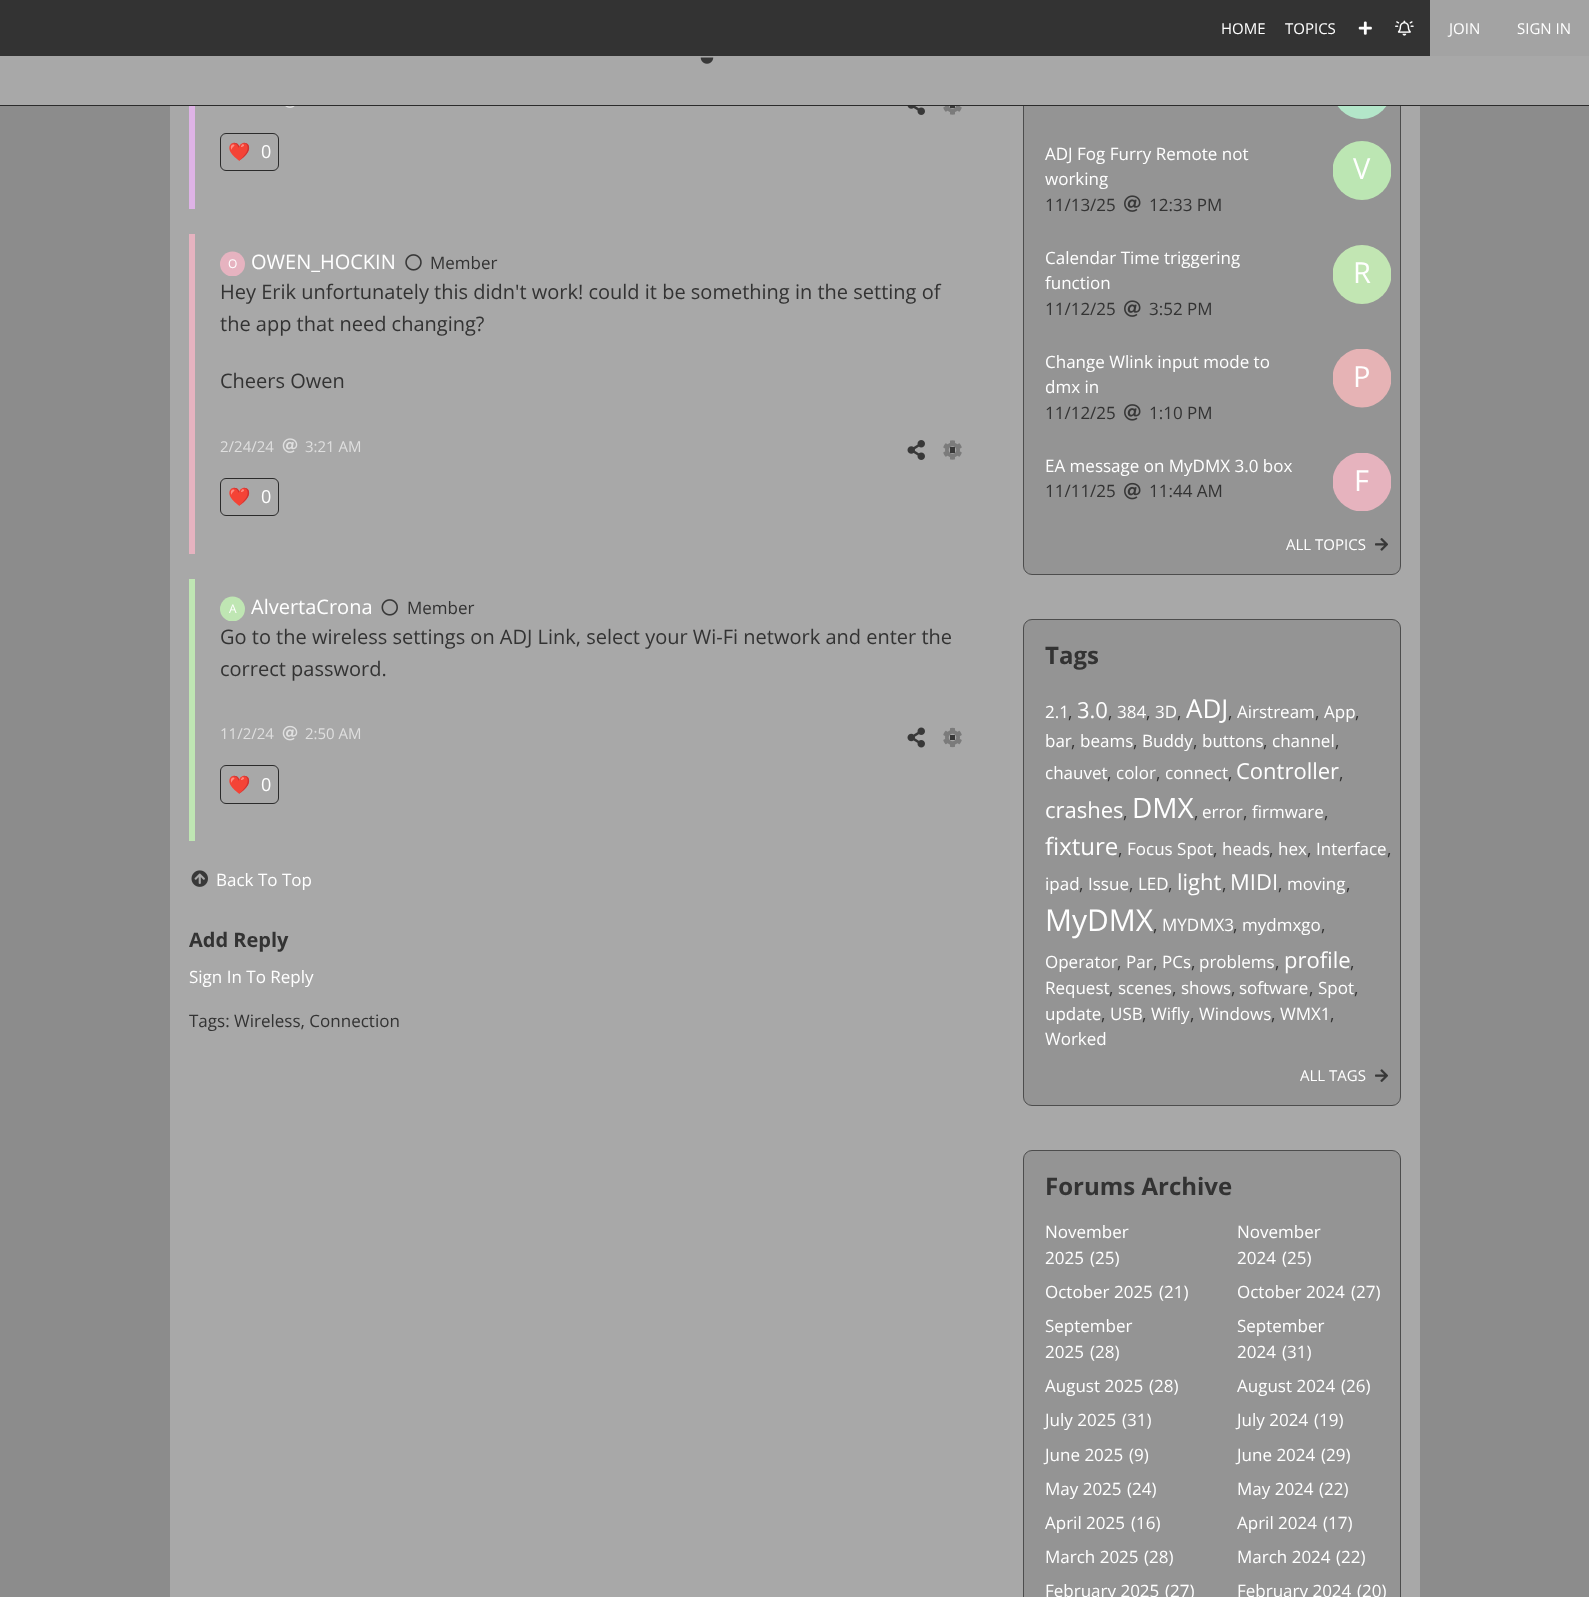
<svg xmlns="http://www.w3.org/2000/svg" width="1589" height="1597">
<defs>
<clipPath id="clip1"><rect x="220" y="251" width="25" height="25"/></clipPath>
<clipPath id="clip2"><rect x="220" y="596" width="25" height="25"/></clipPath>
<clipPath id="clip3"><rect x="1333" y="141" width="58" height="59"/></clipPath>
<clipPath id="clip4"><rect x="1333" y="245" width="58" height="59"/></clipPath>
<clipPath id="clip5"><rect x="1333" y="349" width="58" height="59"/></clipPath>
<clipPath id="clip6"><rect x="1333" y="453" width="58" height="58"/></clipPath>
</defs>
<rect width="100%" height="100%" fill="#8c8c8c"/>
<rect x="170" y="106" width="1250" height="1491" fill="#a8a8a8"/>
<rect x="1023.5" y="-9.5" width="377" height="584" rx="8.5" fill="#949494" stroke="#4d4d4d"/>
<rect width="1430" height="56" fill="#333"/>
<text x="1221" y="34" style="font-family:Open Sans;font-size:15px;fill:#fff">HOME</text>
<text x="1285" y="34" style="font-family:Open Sans;font-size:15px;fill:#fff">TOPICS</text>
<image x="1358" y="21" width="14" height="14" href="media/1.png"/>
<image x="1395" y="20" width="19" height="16" href="media/2.png"/>
<rect x="1430" width="159" height="56" fill="#a3a3a3"/>
<text x="1449" y="34" style="font-family:Open Sans;font-size:15px;fill:#fff">JOIN</text>
<text x="1517" y="34" style="font-family:Open Sans;font-size:15px;fill:#fff">SIGN IN</text>
<rect x="950" y="102" width="5" height="6" fill="#383838"/>
<circle cx="1362" cy="89.5" r="29.5" fill="#b3e6c9"/>
<rect y="56" width="1589" height="49" fill="#a8a8a8"/>
<rect y="105" width="1589" height="1" fill="#2b2b2b"/>
<image x="700" y="57" width="14" height="7" href="media/3.png"/>
<rect x="189" y="106" width="6" height="103" fill="#deb3e6"/>
<image x="285" y="106" width="10" height="2" href="media/4.png"/>
<image x="907" y="106" width="18" height="9" href="media/5.png"/>
<image x="943" y="106" width="19" height="9" href="media/6.png"/>
<rect x="220.5" y="133.5" width="58" height="37" rx="5.5" fill="none" stroke="#2b2b2b"/>
<text x="228" y="158" style="font-family:Noto Color Emoji;font-size:18px;fill:#fff">❤️</text>
<text x="261" y="158" style="font-family:Open Sans;font-size:18px;fill:#fff">0</text>
<rect x="189" y="234" width="6" height="320" fill="#e6b3c0"/>
<g clip-path="url(#clip1)">
<circle cx="232.5" cy="264" r="12.5" fill="#e6b3c0"/>
</g>
<text x="228" y="268" style="font-family:Open Sans;font-size:12px;fill:#fff">O</text>
<text x="251" y="269" style="font-family:Open Sans;font-size:20px;fill:#fff">OWEN_HOCKIN</text>
<image x="405" y="254" width="17" height="17" href="media/7.png"/>
<text x="430" y="269" style="font-family:Open Sans;font-size:17px;fill:#333">Member</text>
<text x="220" y="299" style="font-family:Open Sans;font-size:20px;fill:#333">Hey Erik unfortunately this didn't work! could it be something in the setting of</text>
<text x="220" y="331" style="font-family:Open Sans;font-size:20px;fill:#333">the app that need changing?</text>
<text x="220" y="388" style="font-family:Open Sans;font-size:20px;fill:#333">Cheers Owen</text>
<text x="220" y="452" style="font-family:Open Sans;font-size:15px;fill:#dfdfdf">2/24/24</text>
<image x="282" y="438" width="16" height="15" href="media/8.png"/>
<text x="305" y="452" style="font-family:Open Sans;font-size:15px;fill:#dfdfdf">3:21 AM</text>
<image x="907" y="440" width="18" height="20" href="media/9.png"/>
<rect x="950" y="447" width="5" height="6" fill="#383838"/>
<image x="943" y="440" width="19" height="20" href="media/10.png"/>
<rect x="220.5" y="478.5" width="58" height="37" rx="5.5" fill="none" stroke="#2b2b2b"/>
<text x="228" y="503" style="font-family:Noto Color Emoji;font-size:18px;fill:#fff">❤️</text>
<text x="261" y="503" style="font-family:Open Sans;font-size:18px;fill:#fff">0</text>
<rect x="189" y="579" width="6" height="262" fill="#bfe6b3"/>
<g clip-path="url(#clip2)">
<circle cx="232.5" cy="609" r="12.5" fill="#bfe6b3"/>
</g>
<text x="229" y="613" style="font-family:Open Sans;font-size:12px;fill:#fff">A</text>
<text x="251" y="614" style="font-family:Open Sans;font-size:20px;fill:#fff">AlvertaCrona</text>
<image x="381" y="599" width="17" height="17" href="media/11.png"/>
<text x="407" y="614" style="font-family:Open Sans;font-size:17px;fill:#333">Member</text>
<text x="220" y="644" style="font-family:Open Sans;font-size:20px;fill:#333">Go to the wireless settings on ADJ Link, select your Wi-Fi network and enter the</text>
<text x="220" y="676" style="font-family:Open Sans;font-size:20px;fill:#333">correct password.</text>
<text x="220" y="739" style="font-family:Open Sans;font-size:15px;fill:#dfdfdf">11/2/24</text>
<image x="282" y="725" width="16" height="16" href="media/12.png"/>
<text x="305" y="739" style="font-family:Open Sans;font-size:15px;fill:#dfdfdf">2:50 AM</text>
<image x="907" y="727" width="18" height="21" href="media/13.png"/>
<rect x="950" y="735" width="5" height="5" fill="#383838"/>
<image x="943" y="727" width="19" height="21" href="media/14.png"/>
<rect x="220.5" y="765.5" width="58" height="38" rx="5.5" fill="none" stroke="#2b2b2b"/>
<text x="228" y="791" style="font-family:Noto Color Emoji;font-size:18px;fill:#fff">❤️</text>
<text x="261" y="791" style="font-family:Open Sans;font-size:18px;fill:#fff">0</text>
<image x="191" y="870" width="17" height="17" href="media/15.png"/>
<text x="216" y="886" style="font-family:Open Sans;font-size:17px;fill:#fff">Back To Top</text>
<text x="189" y="947" style="font-family:Open Sans;font-size:20px;font-weight:bold;fill:#333">Add Reply</text>
<text x="189" y="983" style="font-family:Open Sans;font-size:17px;fill:#fff">Sign In To Reply</text>
<text x="189" y="1027" style="font-family:Open Sans;font-size:17px;fill:#333">Tags: Wireless, Connection</text>
<text x="1045" y="160" style="font-family:Open Sans;font-size:17px;fill:#fff">ADJ Fog Furry Remote not</text>
<text x="1045" y="185" style="font-family:Open Sans;font-size:17px;fill:#fff">working</text>
<text x="1045" y="211" style="font-family:Open Sans;font-size:17px;fill:#333">11/13/25</text>
<image x="1124" y="195" width="17" height="17" href="media/16.png"/>
<text x="1149" y="211" style="font-family:Open Sans;font-size:17px;fill:#333">12:33 PM</text>
<g clip-path="url(#clip3)">
<circle cx="1362" cy="170.5" r="29.5" fill="#bce6b3"/>
</g>
<text x="1353" y="179" style="font-family:Open Sans;font-size:29px;fill:#fff">V</text>
<text x="1045" y="264" style="font-family:Open Sans;font-size:17px;fill:#fff">Calendar Time triggering</text>
<text x="1045" y="289" style="font-family:Open Sans;font-size:17px;fill:#fff">function</text>
<text x="1045" y="315" style="font-family:Open Sans;font-size:17px;fill:#333">11/12/25</text>
<image x="1124" y="300" width="17" height="17" href="media/16.png"/>
<text x="1149" y="315" style="font-family:Open Sans;font-size:17px;fill:#333">3:52 PM</text>
<g clip-path="url(#clip4)">
<circle cx="1362" cy="274.5" r="29.5" fill="#c2e6b3"/>
</g>
<text x="1353" y="283" style="font-family:Open Sans;font-size:29px;fill:#fff">R</text>
<text x="1045" y="368" style="font-family:Open Sans;font-size:17px;fill:#fff">Change Wlink input mode to</text>
<text x="1045" y="393" style="font-family:Open Sans;font-size:17px;fill:#fff">dmx in</text>
<text x="1045" y="419" style="font-family:Open Sans;font-size:17px;fill:#333">11/12/25</text>
<image x="1124" y="404" width="17" height="17" href="media/17.png"/>
<text x="1149" y="419" style="font-family:Open Sans;font-size:17px;fill:#333">1:10 PM</text>
<g clip-path="url(#clip5)">
<circle cx="1362" cy="378" r="29.5" fill="#e6b3b5"/>
</g>
<text x="1353" y="387" style="font-family:Open Sans;font-size:29px;fill:#fff">P</text>
<text x="1045" y="472" style="font-family:Open Sans;font-size:17px;fill:#fff">EA message on MyDMX 3.0 box</text>
<text x="1045" y="497" style="font-family:Open Sans;font-size:17px;fill:#333">11/11/25</text>
<image x="1124" y="482" width="17" height="18" href="media/18.png"/>
<text x="1149" y="497" style="font-family:Open Sans;font-size:17px;fill:#333">11:44 AM</text>
<g clip-path="url(#clip6)">
<circle cx="1362" cy="482" r="29.5" fill="#e6b3be"/>
</g>
<text x="1354" y="491" style="font-family:Open Sans;font-size:29px;fill:#fff">F</text>
<text x="1286" y="550" style="font-family:Open Sans;font-size:15px;fill:#fff">ALL TOPICS</text>
<image x="1375" y="538" width="13" height="13" href="media/19.png"/>
<rect x="1023.5" y="619.5" width="377" height="486" rx="8.5" fill="#949494" stroke="#4d4d4d"/>
<text x="1045" y="664" style="font-family:Open Sans;font-size:24px;font-weight:bold;fill:#333">Tags</text>
<text x="1045" y="718" style="font-family:Open Sans;font-size:17px;fill:#fff">2.1</text>
<text x="1068" y="718" style="font-family:Open Sans;font-size:17px;fill:#333">,</text>
<text x="1077" y="718" style="font-family:Open Sans;font-size:22px;fill:#fff">3.0</text>
<text x="1108" y="718" style="font-family:Open Sans;font-size:17px;fill:#333">,</text>
<text x="1117" y="718" style="font-family:Open Sans;font-size:17px;fill:#fff">384</text>
<text x="1146" y="718" style="font-family:Open Sans;font-size:17px;fill:#333">,</text>
<text x="1155" y="718" style="font-family:Open Sans;font-size:17px;fill:#fff">3D</text>
<text x="1177" y="718" style="font-family:Open Sans;font-size:17px;fill:#333">,</text>
<text x="1186" y="718" style="font-family:Open Sans;font-size:26px;fill:#fff">ADJ</text>
<text x="1228" y="718" style="font-family:Open Sans;font-size:17px;fill:#333">,</text>
<text x="1237" y="718" style="font-family:Open Sans;font-size:17px;fill:#fff">Airstream</text>
<text x="1315" y="718" style="font-family:Open Sans;font-size:17px;fill:#333">,</text>
<text x="1324" y="718" style="font-family:Open Sans;font-size:17px;fill:#fff">App</text>
<text x="1355" y="718" style="font-family:Open Sans;font-size:17px;fill:#333">,</text>
<text x="1045" y="747" style="font-family:Open Sans;font-size:17px;fill:#fff">bar</text>
<text x="1071" y="747" style="font-family:Open Sans;font-size:17px;fill:#333">,</text>
<text x="1080" y="747" style="font-family:Open Sans;font-size:17px;fill:#fff">beams</text>
<text x="1133" y="747" style="font-family:Open Sans;font-size:17px;fill:#333">,</text>
<text x="1142" y="747" style="font-family:Open Sans;font-size:17px;fill:#fff">Buddy</text>
<text x="1193" y="747" style="font-family:Open Sans;font-size:17px;fill:#333">,</text>
<text x="1202" y="747" style="font-family:Open Sans;font-size:17px;fill:#fff">buttons</text>
<text x="1263" y="747" style="font-family:Open Sans;font-size:17px;fill:#333">,</text>
<text x="1272" y="747" style="font-family:Open Sans;font-size:17px;fill:#fff">channel</text>
<text x="1335" y="747" style="font-family:Open Sans;font-size:17px;fill:#333">,</text>
<text x="1045" y="779" style="font-family:Open Sans;font-size:17px;fill:#fff">chauvet</text>
<text x="1107" y="779" style="font-family:Open Sans;font-size:17px;fill:#333">,</text>
<text x="1116" y="779" style="font-family:Open Sans;font-size:17px;fill:#fff">color</text>
<text x="1156" y="779" style="font-family:Open Sans;font-size:17px;fill:#333">,</text>
<text x="1165" y="779" style="font-family:Open Sans;font-size:17px;fill:#fff">connect</text>
<text x="1228" y="779" style="font-family:Open Sans;font-size:17px;fill:#333">,</text>
<text x="1236" y="779" style="font-family:Open Sans;font-size:22px;fill:#fff">Controller</text>
<text x="1339" y="779" style="font-family:Open Sans;font-size:17px;fill:#333">,</text>
<text x="1045" y="818" style="font-family:Open Sans;font-size:22px;fill:#fff">crashes</text>
<text x="1123" y="818" style="font-family:Open Sans;font-size:17px;fill:#333">,</text>
<text x="1132" y="818" style="font-family:Open Sans;font-size:28px;fill:#fff">DMX</text>
<text x="1194" y="818" style="font-family:Open Sans;font-size:17px;fill:#333">,</text>
<text x="1202" y="818" style="font-family:Open Sans;font-size:17px;fill:#fff">error</text>
<text x="1243" y="818" style="font-family:Open Sans;font-size:17px;fill:#333">,</text>
<text x="1252" y="818" style="font-family:Open Sans;font-size:17px;fill:#fff">firmware</text>
<text x="1324" y="818" style="font-family:Open Sans;font-size:17px;fill:#333">,</text>
<text x="1045" y="855" style="font-family:Open Sans;font-size:24px;fill:#fff">fixture</text>
<text x="1118" y="855" style="font-family:Open Sans;font-size:17px;fill:#333">,</text>
<text x="1127" y="855" style="font-family:Open Sans;font-size:17px;fill:#fff">Focus Spot</text>
<text x="1213" y="855" style="font-family:Open Sans;font-size:17px;fill:#333">,</text>
<text x="1222" y="855" style="font-family:Open Sans;font-size:17px;fill:#fff">heads</text>
<text x="1269" y="855" style="font-family:Open Sans;font-size:17px;fill:#333">,</text>
<text x="1278" y="855" style="font-family:Open Sans;font-size:17px;fill:#fff">hex</text>
<text x="1307" y="855" style="font-family:Open Sans;font-size:17px;fill:#333">,</text>
<text x="1316" y="855" style="font-family:Open Sans;font-size:17px;fill:#fff">Interface</text>
<text x="1387" y="855" style="font-family:Open Sans;font-size:17px;fill:#333">,</text>
<text x="1045" y="890" style="font-family:Open Sans;font-size:17px;fill:#fff">ipad</text>
<text x="1079" y="890" style="font-family:Open Sans;font-size:17px;fill:#333">,</text>
<text x="1088" y="890" style="font-family:Open Sans;font-size:17px;fill:#fff">Issue</text>
<text x="1129" y="890" style="font-family:Open Sans;font-size:17px;fill:#333">,</text>
<text x="1138" y="890" style="font-family:Open Sans;font-size:17px;fill:#fff">LED</text>
<text x="1168" y="890" style="font-family:Open Sans;font-size:17px;fill:#333">,</text>
<text x="1177" y="890" style="font-family:Open Sans;font-size:22px;fill:#fff">light</text>
<text x="1222" y="890" style="font-family:Open Sans;font-size:17px;fill:#333">,</text>
<text x="1230" y="890" style="font-family:Open Sans;font-size:22px;fill:#fff">MIDI</text>
<text x="1278" y="890" style="font-family:Open Sans;font-size:17px;fill:#333">,</text>
<text x="1287" y="890" style="font-family:Open Sans;font-size:17px;fill:#fff">moving</text>
<text x="1346" y="890" style="font-family:Open Sans;font-size:17px;fill:#333">,</text>
<text x="1045" y="931" style="font-family:Open Sans;font-size:30px;fill:#fff">MyDMX</text>
<text x="1153" y="931" style="font-family:Open Sans;font-size:17px;fill:#333">,</text>
<text x="1162" y="931" style="font-family:Open Sans;font-size:17px;fill:#fff">MYDMX3</text>
<text x="1233" y="931" style="font-family:Open Sans;font-size:17px;fill:#333">,</text>
<text x="1242" y="931" style="font-family:Open Sans;font-size:17px;fill:#fff">mydmxgo</text>
<text x="1321" y="931" style="font-family:Open Sans;font-size:17px;fill:#333">,</text>
<text x="1045" y="968" style="font-family:Open Sans;font-size:17px;fill:#fff">Operator</text>
<text x="1117" y="968" style="font-family:Open Sans;font-size:17px;fill:#333">,</text>
<text x="1126" y="968" style="font-family:Open Sans;font-size:17px;fill:#fff">Par</text>
<text x="1153" y="968" style="font-family:Open Sans;font-size:17px;fill:#333">,</text>
<text x="1162" y="968" style="font-family:Open Sans;font-size:17px;fill:#fff">PCs</text>
<text x="1191" y="968" style="font-family:Open Sans;font-size:17px;fill:#333">,</text>
<text x="1199" y="968" style="font-family:Open Sans;font-size:17px;fill:#fff">problems</text>
<text x="1275" y="968" style="font-family:Open Sans;font-size:17px;fill:#333">,</text>
<text x="1284" y="968" style="font-family:Open Sans;font-size:22px;fill:#fff">profile</text>
<text x="1350" y="968" style="font-family:Open Sans;font-size:17px;fill:#333">,</text>
<text x="1045" y="994" style="font-family:Open Sans;font-size:17px;fill:#fff">Request</text>
<text x="1109" y="994" style="font-family:Open Sans;font-size:17px;fill:#333">,</text>
<text x="1118" y="994" style="font-family:Open Sans;font-size:17px;fill:#fff">scenes</text>
<text x="1172" y="994" style="font-family:Open Sans;font-size:17px;fill:#333">,</text>
<text x="1181" y="994" style="font-family:Open Sans;font-size:17px;fill:#fff">shows</text>
<text x="1231" y="994" style="font-family:Open Sans;font-size:17px;fill:#333">,</text>
<text x="1239" y="994" style="font-family:Open Sans;font-size:17px;fill:#fff">software</text>
<text x="1309" y="994" style="font-family:Open Sans;font-size:17px;fill:#333">,</text>
<text x="1318" y="994" style="font-family:Open Sans;font-size:17px;fill:#fff">Spot</text>
<text x="1354" y="994" style="font-family:Open Sans;font-size:17px;fill:#333">,</text>
<text x="1045" y="1020" style="font-family:Open Sans;font-size:17px;fill:#fff">update</text>
<text x="1110" y="1020" style="font-family:Open Sans;font-size:17px;fill:#fff">USB</text>
<text x="1151" y="1020" style="font-family:Open Sans;font-size:17px;fill:#fff">Wifly</text>
<text x="1199" y="1020" style="font-family:Open Sans;font-size:17px;fill:#fff">Windows</text>
<text x="1280" y="1020" style="font-family:Open Sans;font-size:17px;fill:#fff">WMX1</text>
<text x="1101" y="1020" style="font-family:Open Sans;font-size:17px;fill:#333">,</text>
<text x="1142" y="1020" style="font-family:Open Sans;font-size:17px;fill:#333">,</text>
<text x="1190" y="1020" style="font-family:Open Sans;font-size:17px;fill:#333">,</text>
<text x="1271" y="1020" style="font-family:Open Sans;font-size:17px;fill:#333">,</text>
<text x="1330" y="1020" style="font-family:Open Sans;font-size:17px;fill:#333">,</text>
<text x="1045" y="1045" style="font-family:Open Sans;font-size:17px;fill:#fff">Worked</text>
<text x="1300" y="1081" style="font-family:Open Sans;font-size:15px;fill:#fff">ALL TAGS</text>
<image x="1375" y="1069" width="13" height="13" href="media/20.png"/>
<rect x="1023.5" y="1150.5" width="377" height="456" rx="8.5" fill="#949494" stroke="#4d4d4d"/>
<text x="1045" y="1195" style="font-family:Open Sans;font-size:24px;font-weight:bold;fill:#333">Forums Archive</text>
<text x="1045" y="1238" style="font-family:Open Sans;font-size:17px;fill:#fff">November</text>
<text x="1045" y="1264" style="font-family:Open Sans;font-size:17px;fill:#fff">2025</text>
<text x="1090" y="1264" style="font-family:Open Sans;font-size:17px;fill:#fff">(25)</text>
<text x="1045" y="1298" style="font-family:Open Sans;font-size:17px;fill:#fff">October 2025</text>
<text x="1159" y="1298" style="font-family:Open Sans;font-size:17px;fill:#fff">(21)</text>
<text x="1045" y="1332" style="font-family:Open Sans;font-size:17px;fill:#fff">September</text>
<text x="1045" y="1358" style="font-family:Open Sans;font-size:17px;fill:#fff">2025</text>
<text x="1090" y="1358" style="font-family:Open Sans;font-size:17px;fill:#fff">(28)</text>
<text x="1045" y="1392" style="font-family:Open Sans;font-size:17px;fill:#fff">August 2025</text>
<text x="1149" y="1392" style="font-family:Open Sans;font-size:17px;fill:#fff">(28)</text>
<text x="1045" y="1426" style="font-family:Open Sans;font-size:17px;fill:#fff">July 2025</text>
<text x="1122" y="1426" style="font-family:Open Sans;font-size:17px;fill:#fff">(31)</text>
<text x="1045" y="1461" style="font-family:Open Sans;font-size:17px;fill:#fff">June 2025</text>
<text x="1129" y="1461" style="font-family:Open Sans;font-size:17px;fill:#fff">(9)</text>
<text x="1045" y="1495" style="font-family:Open Sans;font-size:17px;fill:#fff">May 2025</text>
<text x="1127" y="1495" style="font-family:Open Sans;font-size:17px;fill:#fff">(24)</text>
<text x="1045" y="1529" style="font-family:Open Sans;font-size:17px;fill:#fff">April 2025</text>
<text x="1131" y="1529" style="font-family:Open Sans;font-size:17px;fill:#fff">(16)</text>
<text x="1045" y="1563" style="font-family:Open Sans;font-size:17px;fill:#fff">March 2025</text>
<text x="1144" y="1563" style="font-family:Open Sans;font-size:17px;fill:#fff">(28)</text>
<text x="1045" y="1597" style="font-family:Open Sans;font-size:17px;fill:#fff">February 2025</text>
<text x="1165" y="1597" style="font-family:Open Sans;font-size:17px;fill:#fff">(27)</text>
<text x="1237" y="1238" style="font-family:Open Sans;font-size:17px;fill:#fff">November</text>
<text x="1237" y="1264" style="font-family:Open Sans;font-size:17px;fill:#fff">2024</text>
<text x="1282" y="1264" style="font-family:Open Sans;font-size:17px;fill:#fff">(25)</text>
<text x="1237" y="1298" style="font-family:Open Sans;font-size:17px;fill:#fff">October 2024</text>
<text x="1351" y="1298" style="font-family:Open Sans;font-size:17px;fill:#fff">(27)</text>
<text x="1237" y="1332" style="font-family:Open Sans;font-size:17px;fill:#fff">September</text>
<text x="1237" y="1358" style="font-family:Open Sans;font-size:17px;fill:#fff">2024</text>
<text x="1282" y="1358" style="font-family:Open Sans;font-size:17px;fill:#fff">(31)</text>
<text x="1237" y="1392" style="font-family:Open Sans;font-size:17px;fill:#fff">August 2024</text>
<text x="1341" y="1392" style="font-family:Open Sans;font-size:17px;fill:#fff">(26)</text>
<text x="1237" y="1426" style="font-family:Open Sans;font-size:17px;fill:#fff">July 2024</text>
<text x="1314" y="1426" style="font-family:Open Sans;font-size:17px;fill:#fff">(19)</text>
<text x="1237" y="1461" style="font-family:Open Sans;font-size:17px;fill:#fff">June 2024</text>
<text x="1321" y="1461" style="font-family:Open Sans;font-size:17px;fill:#fff">(29)</text>
<text x="1237" y="1495" style="font-family:Open Sans;font-size:17px;fill:#fff">May 2024</text>
<text x="1319" y="1495" style="font-family:Open Sans;font-size:17px;fill:#fff">(22)</text>
<text x="1237" y="1529" style="font-family:Open Sans;font-size:17px;fill:#fff">April 2024</text>
<text x="1323" y="1529" style="font-family:Open Sans;font-size:17px;fill:#fff">(17)</text>
<text x="1237" y="1563" style="font-family:Open Sans;font-size:17px;fill:#fff">March 2024</text>
<text x="1336" y="1563" style="font-family:Open Sans;font-size:17px;fill:#fff">(22)</text>
<text x="1237" y="1597" style="font-family:Open Sans;font-size:17px;fill:#fff">February 2024</text>
<text x="1357" y="1597" style="font-family:Open Sans;font-size:17px;fill:#fff">(20)</text>
</svg>
